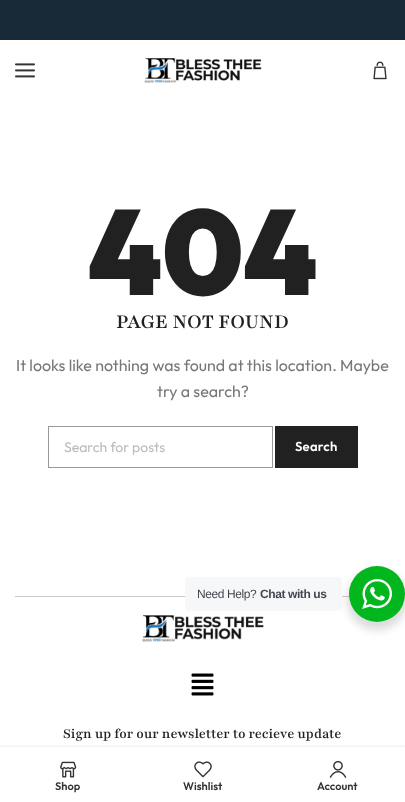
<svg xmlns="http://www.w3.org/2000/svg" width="405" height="802">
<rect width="100%" height="100%" fill="#fff"/>
<rect width="405" height="40" fill="#182938"/>
<image x="15" y="63" width="20" height="15" href="media/1.png"/>
<image x="144" y="58" width="118" height="25" href="media/2.png"/>
<image x="373" y="61" width="14" height="19" href="media/3.png"/>
<text x="88" y="295" style="font-family:Outfit;font-size:120px;font-weight:900;fill:#212121">404</text>
<text x="116" y="328" style="font-family:'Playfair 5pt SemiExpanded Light';font-size:22px;font-weight:600;fill:#212121">PAGE NOT FOUND</text>
<text x="16" y="371" style="font-family:Outfit;font-size:16px;fill:#777">It looks like nothing was found at this location. Maybe</text>
<text x="157" y="397" style="font-family:Outfit;font-size:16px;fill:#777">try a search?</text>
<rect x="48.5" y="426.5" width="224" height="41" fill="none" stroke="#999"/>
<text x="64" y="452" style="font-family:Outfit;font-size:14px;fill:#bbb">Search for posts</text>
<rect x="275" y="426" width="83" height="42" fill="#212121"/>
<text x="295" y="451" style="font-family:Outfit;font-size:13px;font-weight:600;letter-spacing:0.25px;fill:#fff">Search</text>
<rect x="15" y="596" width="335" height="1" fill="#c9c9c9"/>
<image x="142" y="615" width="122" height="27" href="media/4.png"/>
<image x="191" y="673" width="23" height="23" href="media/5.png"/>
<text x="63" y="738" style="font-family:'Playfair 5pt SemiExpanded Light';font-size:15px;font-weight:600;fill:#212121">Sign up for our newsletter to recieve update</text>
<rect x="347" y="570" width="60" height="60" rx="30" fill="#00000024" filter="blur(4px)"/>
<rect x="185" y="577" width="157" height="34" rx="4" fill="#f5f7f9"/>
<text x="197" y="598" style="font-family:Liberation Sans;font-size:12px;letter-spacing:-0.4px;fill:#43474e">Need Help?</text>
<text x="260" y="598" style="font-family:Liberation Sans;font-size:12px;font-weight:bold;letter-spacing:-0.4px;fill:#43474e">Chat with us</text>
<circle cx="377" cy="594" r="28" fill="#01b71d"/>
<image x="362" y="579" width="30" height="30" href="media/6.png"/>
<rect y="747" width="405" height="55" fill="#00000026" filter="blur(1.5px)"/>
<rect y="747" width="405" height="55" fill="#fff"/>
<image x="60" y="761" width="17" height="17" href="media/7.png"/>
<text x="55" y="790" style="font-family:Outfit;font-size:11px;font-weight:600;fill:#333">Shop</text>
<image x="194" y="761" width="18" height="17" href="media/8.png"/>
<text x="183" y="790" style="font-family:Outfit;font-size:11px;font-weight:600;fill:#333">Wishlist</text>
<image x="329" y="760" width="18" height="18" href="media/9.png"/>
<text x="317" y="790" style="font-family:Outfit;font-size:11px;font-weight:600;fill:#333">Account</text>
</svg>
